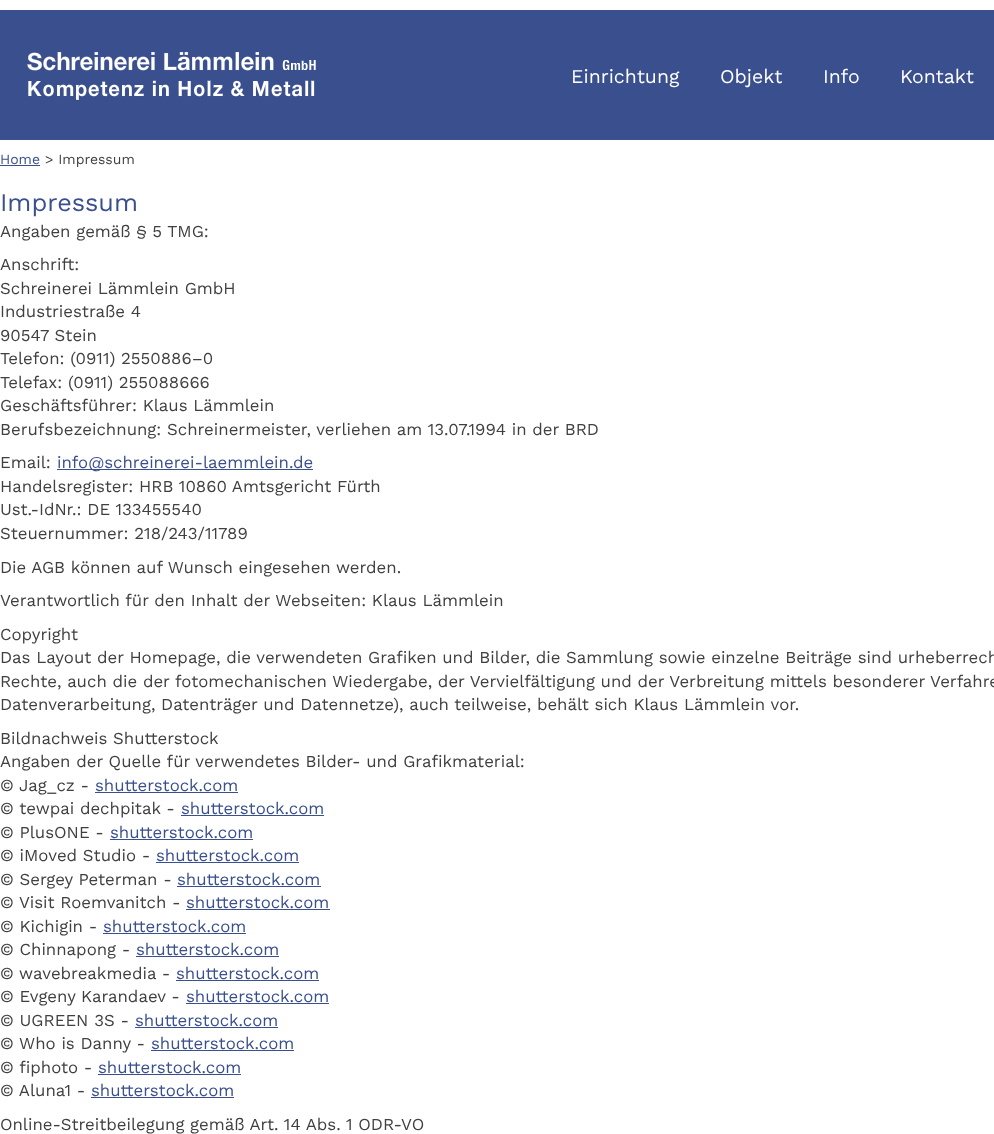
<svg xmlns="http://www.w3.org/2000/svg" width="994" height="1134">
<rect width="100%" height="100%" fill="#fff"/>
<rect y="10" width="994" height="130" fill="#3a4f8d"/>
<image x="27" y="52" width="289" height="48" href="media/1.png"/>
<text x="571" y="83" style="font-family:Work Sans;font-size:19.5px;fill:#fff">Einrichtung</text>
<text x="720" y="83" style="font-family:Work Sans;font-size:19.5px;fill:#fff">Objekt</text>
<text x="823" y="83" style="font-family:Work Sans;font-size:19.5px;fill:#fff">Info</text>
<text x="900" y="83" style="font-family:Work Sans;font-size:19.5px;fill:#fff">Kontakt</text>
<text x="0" y="164" style="font-family:Work Sans;font-size:14px;fill:#3a4f8d">Home</text>
<rect y="165" width="40" height="1" fill="#3a4f8d"/>
<text x="45" y="164" style="font-family:Work Sans;font-size:14px;fill:#404040">&gt; Impressum</text>
<text x="0" y="211" style="font-family:Work Sans;font-size:25.25px;fill:#3a4f8d">Impressum</text>
<text x="0" y="237" style="font-family:Work Sans;font-size:16.8px;fill:#404040">Angaben gemäß § 5 TMG:</text>
<text x="0" y="270" style="font-family:Work Sans;font-size:16.8px;fill:#404040">Anschrift:</text>
<text x="0" y="294" style="font-family:Work Sans;font-size:16.8px;fill:#404040">Schreinerei Lämmlein GmbH</text>
<text x="0" y="317" style="font-family:Work Sans;font-size:16.8px;fill:#404040">Industriestraße 4</text>
<text x="0" y="341" style="font-family:Work Sans;font-size:16.8px;fill:#404040">90547 Stein</text>
<text x="0" y="364" style="font-family:Work Sans;font-size:16.8px;fill:#404040">Telefon: (0911) 2550886–0</text>
<text x="0" y="388" style="font-family:Work Sans;font-size:16.8px;fill:#404040">Telefax: (0911) 255088666</text>
<text x="0" y="411" style="font-family:Work Sans;font-size:16.8px;fill:#404040">Geschäftsführer: Klaus Lämmlein</text>
<text x="0" y="435" style="font-family:Work Sans;font-size:16.8px;fill:#404040">Berufsbezeichnung: Schreinermeister, verliehen am 13.07.1994 in der BRD</text>
<text x="0" y="468" style="font-family:Work Sans;font-size:16.8px;fill:#404040">Email:</text>
<rect x="57" y="469" width="256" height="1" fill="#3a4f8d"/>
<text x="57" y="468" style="font-family:Work Sans;font-size:16.8px;fill:#3a4f8d">info@schreinerei-laemmlein.de</text>
<text x="0" y="492" style="font-family:Work Sans;font-size:16.8px;fill:#404040">Handelsregister: HRB 10860 Amtsgericht Fürth</text>
<text x="0" y="515" style="font-family:Work Sans;font-size:16.8px;fill:#404040">Ust.-IdNr.: DE 133455540</text>
<text x="0" y="539" style="font-family:Work Sans;font-size:16.8px;fill:#404040">Steuernummer: 218/243/11789</text>
<text x="0" y="573" style="font-family:Work Sans;font-size:16.8px;fill:#404040">Die AGB können auf Wunsch eingesehen werden.</text>
<text x="0" y="606" style="font-family:Work Sans;font-size:16.8px;fill:#404040">Verantwortlich für den Inhalt der Webseiten: Klaus Lämmlein</text>
<text x="0" y="640" style="font-family:Work Sans;font-size:16.8px;fill:#404040">Copyright</text>
<text x="0" y="663" style="font-family:Work Sans;font-size:16.8px;fill:#404040">Das Layout der Homepage, die verwendeten Grafiken und Bilder, die Sammlung sowie einzelne Beiträge sind urheberrech</text>
<text x="0" y="687" style="font-family:Work Sans;font-size:16.8px;fill:#404040">Rechte, auch die der fotomechanischen Wiedergabe, der Vervielfältigung und der Verbreitung mittels besonderer Verfahre</text>
<text x="0" y="710" style="font-family:Work Sans;font-size:16.8px;fill:#404040">Datenverarbeitung, Datenträger und Datennetze), auch teilweise, behält sich Klaus Lämmlein vor.</text>
<text x="0" y="744" style="font-family:Work Sans;font-size:16.8px;fill:#404040">Bildnachweis Shutterstock</text>
<text x="0" y="767" style="font-family:Work Sans;font-size:16.8px;fill:#404040">Angaben der Quelle für verwendetes Bilder- und Grafikmaterial:</text>
<text x="0" y="791" style="font-family:Work Sans;font-size:16.8px;fill:#404040">© Jag_cz -</text>
<text x="95" y="791" style="font-family:Work Sans;font-size:16.8px;fill:#3a4f8d">shutterstock.com</text>
<rect x="95" y="792" width="143" height="1" fill="#3a4f8d"/>
<text x="0" y="814" style="font-family:Work Sans;font-size:16.8px;fill:#404040">© tewpai dechpitak -</text>
<text x="181" y="814" style="font-family:Work Sans;font-size:16.8px;fill:#3a4f8d">shutterstock.com</text>
<rect x="181" y="815" width="143" height="1" fill="#3a4f8d"/>
<text x="0" y="838" style="font-family:Work Sans;font-size:16.8px;fill:#404040">© PlusONE -</text>
<text x="110" y="838" style="font-family:Work Sans;font-size:16.8px;fill:#3a4f8d">shutterstock.com</text>
<rect x="110" y="839" width="143" height="1" fill="#3a4f8d"/>
<text x="0" y="861" style="font-family:Work Sans;font-size:16.8px;fill:#404040">© iMoved Studio -</text>
<text x="156" y="861" style="font-family:Work Sans;font-size:16.8px;fill:#3a4f8d">shutterstock.com</text>
<rect x="156" y="862" width="143" height="1" fill="#3a4f8d"/>
<text x="0" y="885" style="font-family:Work Sans;font-size:16.8px;fill:#404040">© Sergey Peterman -</text>
<text x="177" y="885" style="font-family:Work Sans;font-size:16.8px;fill:#3a4f8d">shutterstock.com</text>
<rect x="177" y="886" width="144" height="1" fill="#3a4f8d"/>
<text x="0" y="908" style="font-family:Work Sans;font-size:16.8px;fill:#404040">© Visit Roemvanitch -</text>
<text x="186" y="908" style="font-family:Work Sans;font-size:16.8px;fill:#3a4f8d">shutterstock.com</text>
<rect x="186" y="909" width="144" height="1" fill="#3a4f8d"/>
<text x="0" y="932" style="font-family:Work Sans;font-size:16.8px;fill:#404040">© Kichigin -</text>
<text x="103" y="932" style="font-family:Work Sans;font-size:16.8px;fill:#3a4f8d">shutterstock.com</text>
<rect x="103" y="933" width="143" height="1" fill="#3a4f8d"/>
<text x="0" y="955" style="font-family:Work Sans;font-size:16.8px;fill:#404040">© Chinnapong -</text>
<text x="136" y="955" style="font-family:Work Sans;font-size:16.8px;fill:#3a4f8d">shutterstock.com</text>
<rect x="136" y="956" width="143" height="1" fill="#3a4f8d"/>
<text x="0" y="979" style="font-family:Work Sans;font-size:16.8px;fill:#404040">© wavebreakmedia -</text>
<text x="176" y="979" style="font-family:Work Sans;font-size:16.8px;fill:#3a4f8d">shutterstock.com</text>
<rect x="176" y="980" width="143" height="1" fill="#3a4f8d"/>
<text x="0" y="1002" style="font-family:Work Sans;font-size:16.8px;fill:#404040">© Evgeny Karandaev -</text>
<text x="186" y="1002" style="font-family:Work Sans;font-size:16.8px;fill:#3a4f8d">shutterstock.com</text>
<rect x="186" y="1003" width="143" height="1" fill="#3a4f8d"/>
<text x="0" y="1026" style="font-family:Work Sans;font-size:16.8px;fill:#404040">© UGREEN 3S -</text>
<text x="135" y="1026" style="font-family:Work Sans;font-size:16.8px;fill:#3a4f8d">shutterstock.com</text>
<rect x="135" y="1027" width="143" height="1" fill="#3a4f8d"/>
<text x="0" y="1049" style="font-family:Work Sans;font-size:16.8px;fill:#404040">© Who is Danny -</text>
<text x="151" y="1049" style="font-family:Work Sans;font-size:16.8px;fill:#3a4f8d">shutterstock.com</text>
<rect x="151" y="1050" width="143" height="1" fill="#3a4f8d"/>
<text x="0" y="1073" style="font-family:Work Sans;font-size:16.8px;fill:#404040">© fiphoto -</text>
<text x="98" y="1073" style="font-family:Work Sans;font-size:16.8px;fill:#3a4f8d">shutterstock.com</text>
<rect x="98" y="1074" width="143" height="1" fill="#3a4f8d"/>
<text x="0" y="1096" style="font-family:Work Sans;font-size:16.8px;fill:#404040">© Aluna1 -</text>
<text x="91" y="1096" style="font-family:Work Sans;font-size:16.8px;fill:#3a4f8d">shutterstock.com</text>
<rect x="91" y="1097" width="143" height="1" fill="#3a4f8d"/>
<text x="0" y="1130" style="font-family:Work Sans;font-size:16.8px;fill:#404040">Online-Streitbeilegung gemäß Art. 14 Abs. 1 ODR-VO</text>
</svg>
